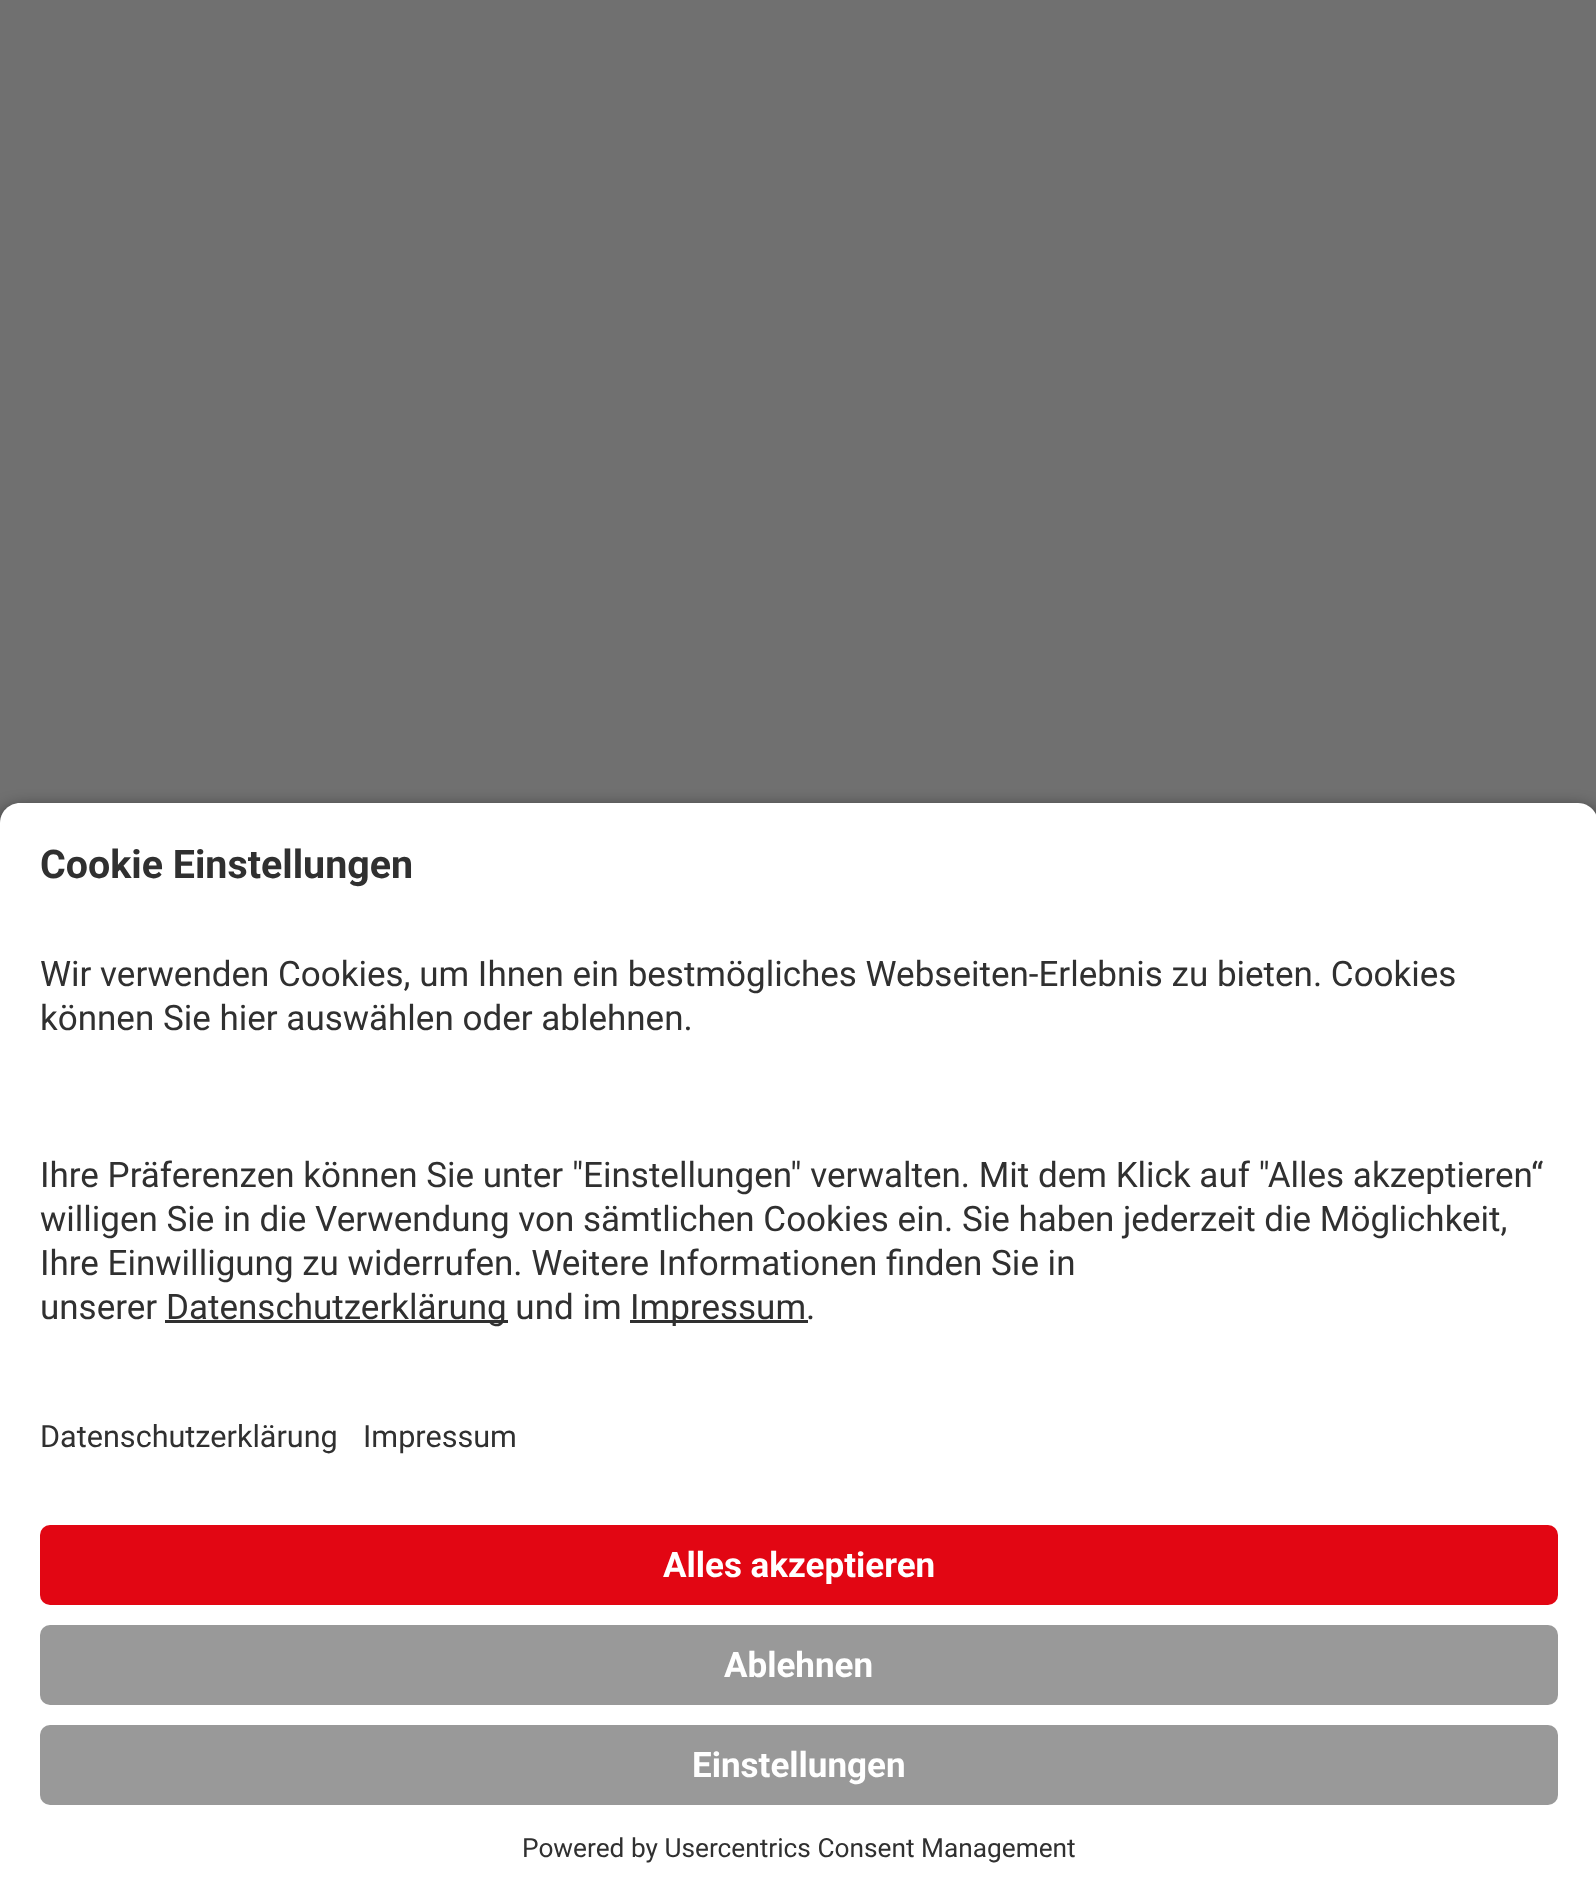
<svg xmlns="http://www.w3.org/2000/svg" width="1596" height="1903">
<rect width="100%" height="100%" fill="#707070"/>
<rect y="810" width="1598" height="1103" rx="20" fill="#000000cc" filter="blur(9px)"/>
<path d="M20 803h1558c11 0 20 9 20 20v557h-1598v-557c0-11 9-20 20-20z" fill="#fff"/>
<text x="40" y="878" style="font-family:Roboto;font-size:39.4px;font-weight:bold;fill:#303030">Cookie Einstellungen</text>
<text x="40" y="986" style="font-family:Roboto;font-size:35px;fill:#303030">Wir verwenden Cookies, um Ihnen ein bestmögliches Webseiten-Erlebnis zu bieten. Cookies</text>
<text x="40" y="1030" style="font-family:Roboto;font-size:35px;fill:#303030">können Sie hier auswählen oder ablehnen.</text>
<text x="40" y="1187" style="font-family:Roboto;font-size:35px;fill:#303030">Ihre Präferenzen können Sie unter "Einstellungen" verwalten. Mit dem Klick auf "Alles akzeptieren“</text>
<text x="40" y="1231" style="font-family:Roboto;font-size:35px;fill:#303030">willigen Sie in die Verwendung von sämtlichen Cookies ein. Sie haben jederzeit die Möglichkeit,</text>
<text x="40" y="1275" style="font-family:Roboto;font-size:35px;fill:#303030">Ihre Einwilligung zu widerrufen. Weitere Informationen finden Sie in</text>
<text x="40" y="1319" style="font-family:Roboto;font-size:35px;fill:#303030">unserer</text>
<rect x="165" y="1320" width="343" height="3" fill="#303030"/>
<text x="166" y="1319" style="font-family:Roboto;font-size:35px;fill:#303030">Datenschutzerklärung und im</text>
<rect x="630" y="1320" width="178" height="3" fill="#303030"/>
<text x="630" y="1319" style="font-family:Roboto;font-size:35px;fill:#303030">Impressum.</text>
<rect y="1380" width="1596" height="523" fill="#fff"/>
<text x="40" y="1447" style="font-family:Roboto;font-size:30.6px;fill:#303030">Datenschutzerklärung</text>
<text x="363" y="1447" style="font-family:Roboto;font-size:30.6px;fill:#303030">Impressum</text>
<rect x="40" y="1525" width="1518" height="80" rx="10" fill="#e20613"/>
<text x="663" y="1577" style="font-family:Roboto;font-size:35px;font-weight:bold;fill:#fff">Alles akzeptieren</text>
<rect x="40" y="1625" width="1518" height="80" rx="10" fill="#999"/>
<text x="724" y="1677" style="font-family:Roboto;font-size:35px;font-weight:bold;fill:#fff">Ablehnen</text>
<rect x="40" y="1725" width="1518" height="80" rx="10" fill="#999"/>
<text x="692" y="1777" style="font-family:Roboto;font-size:35px;font-weight:bold;fill:#fff">Einstellungen</text>
<text x="522" y="1857" style="font-family:Roboto;font-size:26.25px;fill:#303030">Powered by Usercentrics Consent Management</text>
</svg>
